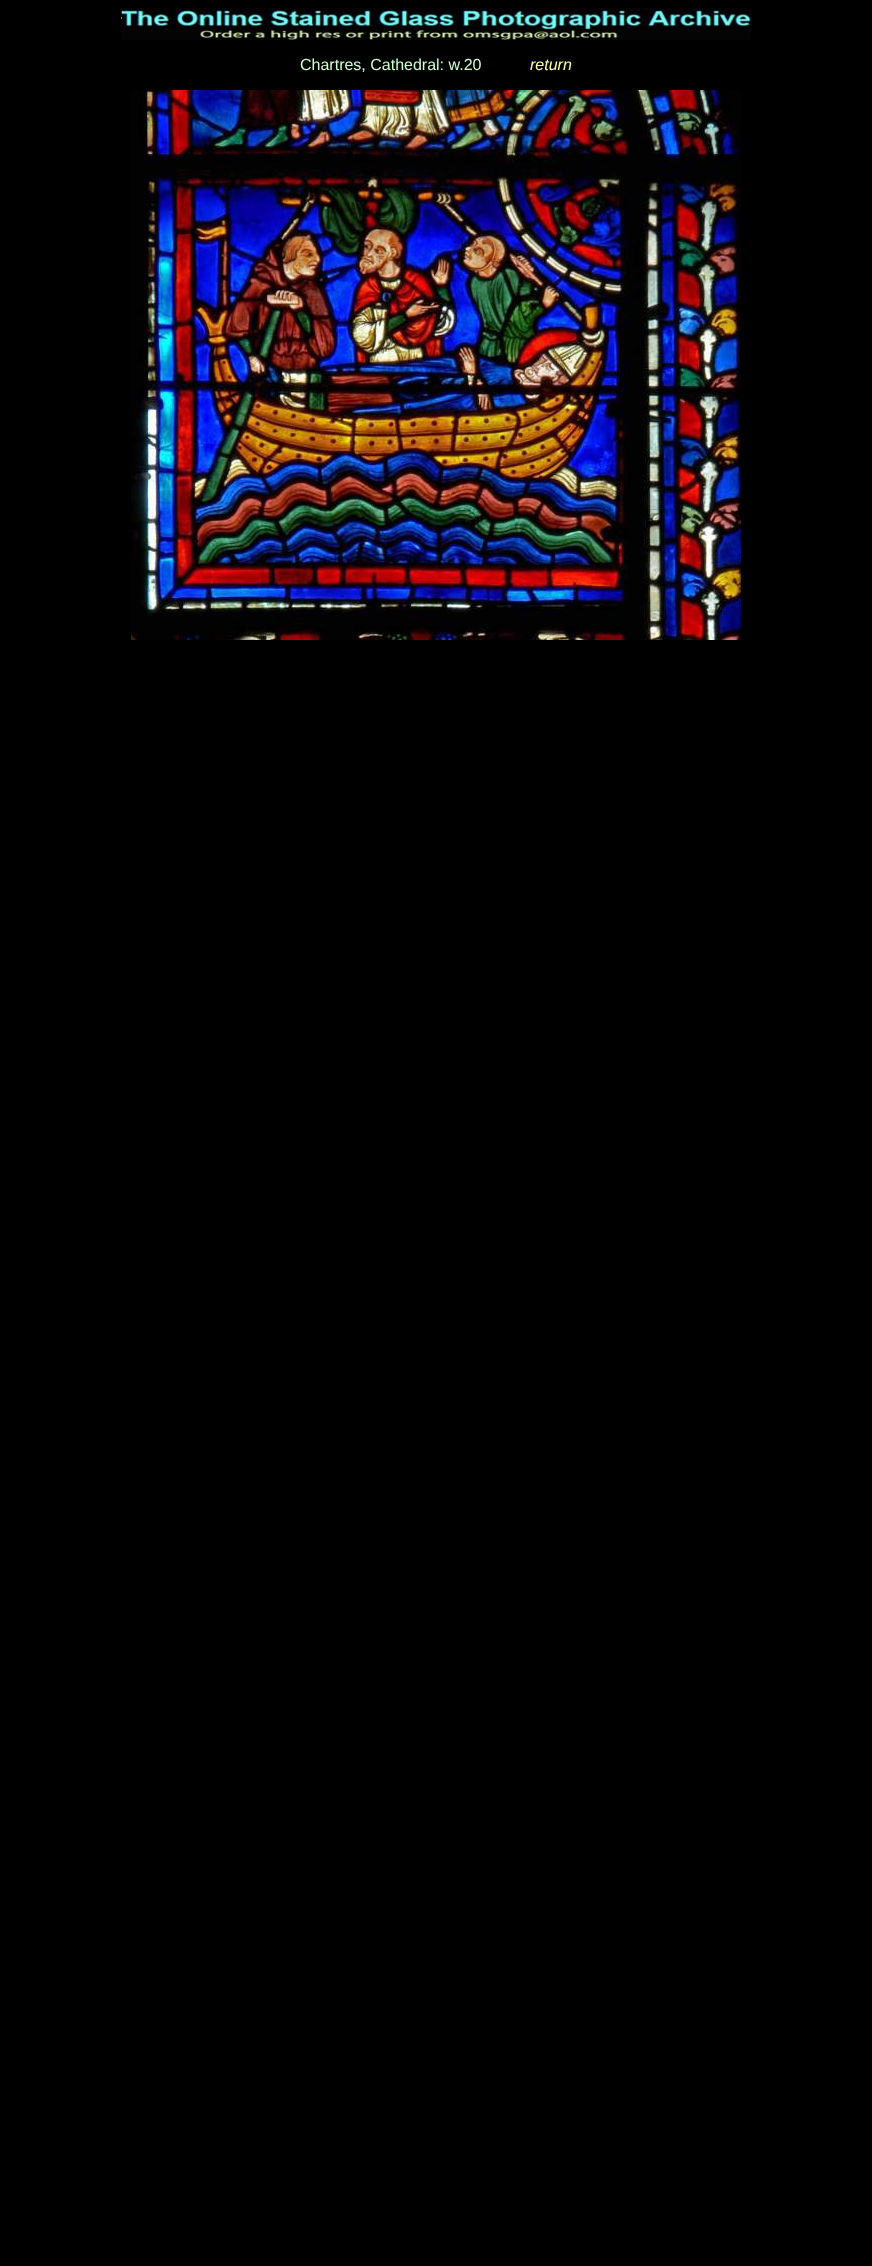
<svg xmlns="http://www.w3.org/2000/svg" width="872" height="2266">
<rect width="100%" height="100%" fill="#000"/>
<image x="121" y="8" width="630" height="32" href="media/1.png"/>
<text x="300" y="70" style="font-family:Liberation Sans;font-size:16px;fill:#cfc">Chartres, Cathedral: w.20</text>
<text x="530" y="70" style="font-family:Liberation Sans;font-size:16px;font-style:italic;fill:#ff9">return</text>
<image x="131" y="90" width="610" height="550" href="media/2.png"/>
</svg>
